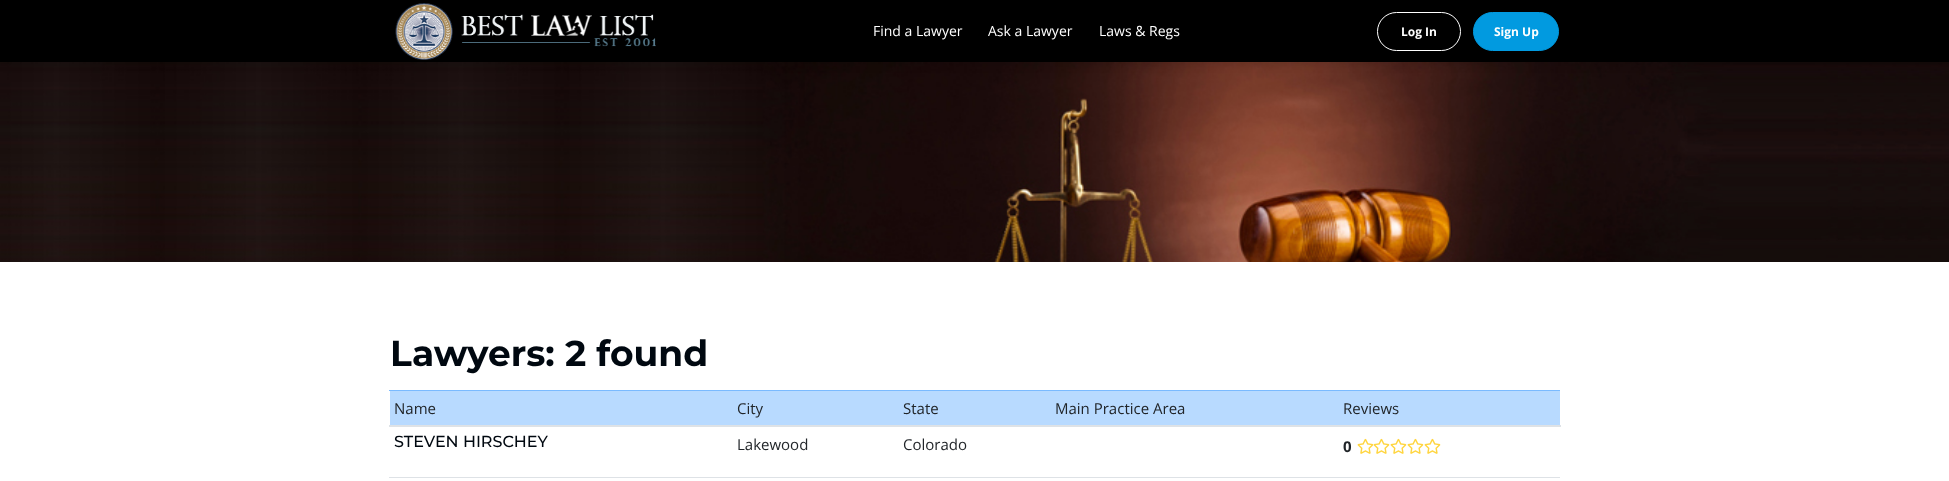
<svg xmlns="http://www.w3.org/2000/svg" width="1949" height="481">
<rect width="100%" height="100%" fill="#fff"/>
<image x="0" y="62" width="1949" height="200" href="media/2.png"/>
<rect y="2" width="1949" height="62" fill="#0000001a" filter="blur(5px)"/>
<rect width="1949" height="62" fill="#000"/>
<image x="395" y="3" width="261" height="57" href="media/1.png"/>
<text x="873" y="36" style="font-family:Open Sans;font-size:14px;fill:#fff">Find a Lawyer</text>
<text x="988" y="36" style="font-family:Open Sans;font-size:14px;fill:#fff">Ask a Lawyer</text>
<text x="1099" y="36" style="font-family:Open Sans;font-size:14px;fill:#fff">Laws &amp; Regs</text>
<rect x="1377.5" y="12.5" width="83" height="38" rx="19" fill="none" stroke="#fff"/>
<text x="1401" y="36" style="font-family:Open Sans;font-size:12px;font-weight:bold;fill:#fff">Log In</text>
<rect x="1473.5" y="12.5" width="85" height="38" rx="19" fill="#019ae0" stroke="#019ae0"/>
<text x="1494" y="36" style="font-family:Open Sans;font-size:12px;font-weight:bold;fill:#fff">Sign Up</text>
<text x="390" y="366" style="font-family:Montserrat;font-size:36px;font-weight:bold;fill:#000810">Lawyers: 2 found</text>
<rect x="390" y="391" width="1170" height="34" fill="#b8daff"/>
<text x="394" y="414" style="font-family:Open Sans;font-size:15px;fill:#212529">Name</text>
<text x="737" y="414" style="font-family:Open Sans;font-size:15px;fill:#212529">City</text>
<text x="903" y="414" style="font-family:Open Sans;font-size:15px;fill:#212529">State</text>
<text x="1055" y="414" style="font-family:Open Sans;font-size:15px;fill:#212529">Main Practice Area</text>
<rect x="389" y="390" width="1171" height="1" fill="#7abaff"/>
<rect x="389" y="425" width="1172" height="2" fill="#dee2e6"/>
<text x="1343" y="414" style="font-family:Open Sans;font-size:15px;fill:#212529">Reviews</text>
<text x="394" y="447" style="font-family:Montserrat;font-size:16px;font-weight:500;fill:#000810">STEVEN HIRSCHEY</text>
<text x="737" y="450" style="font-family:Open Sans;font-size:15px;fill:#212529">Lakewood</text>
<text x="903" y="450" style="font-family:Open Sans;font-size:15px;fill:#212529">Colorado</text>
<text x="1343" y="452" style="font-family:Open Sans;font-size:15px;font-weight:bold;fill:#212529">0</text>
<image x="1357" y="438" width="17" height="16" href="media/3.png"/>
<image x="1373" y="438" width="17" height="16" href="media/4.png"/>
<image x="1390" y="438" width="17" height="16" href="media/3.png"/>
<image x="1407" y="438" width="17" height="16" href="media/3.png"/>
<image x="1424" y="438" width="17" height="16" href="media/3.png"/>
<rect x="389" y="477" width="1171" height="1" fill="#dee2e6"/>
</svg>
